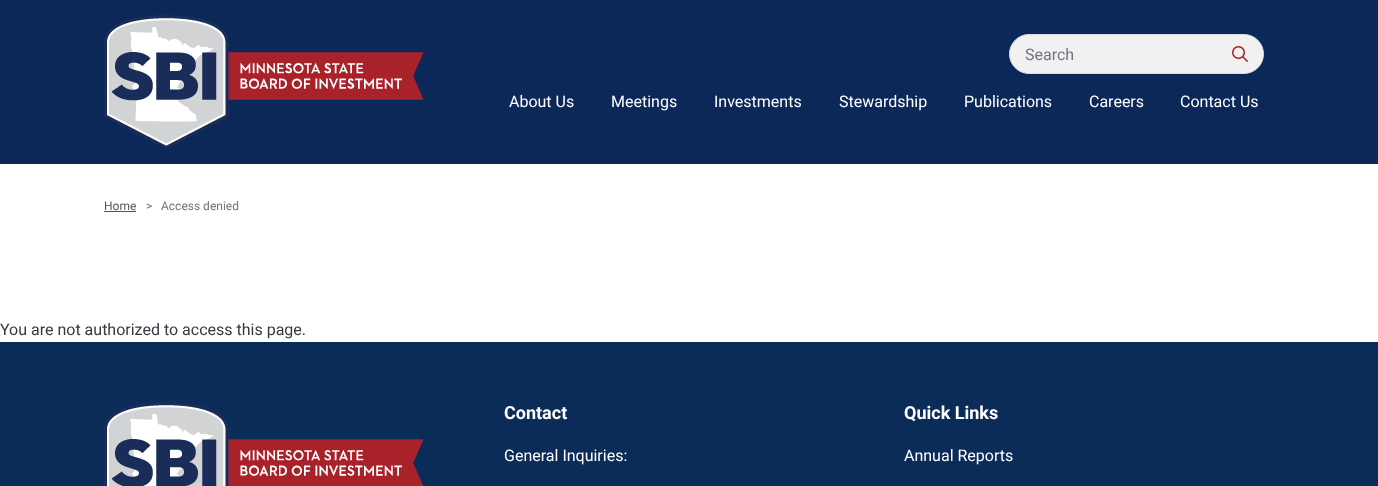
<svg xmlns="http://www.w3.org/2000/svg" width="1378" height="486">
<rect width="100%" height="100%" fill="#fff"/>
<rect width="1378" height="164" fill="#0b2859"/>
<image x="104" y="15" width="320" height="134" href="media/1.png"/>
<rect x="1009.5" y="34.5" width="254" height="39" rx="19.5" fill="#f1f1f1" stroke="#dcdcdc"/>
<text x="1025" y="60" style="font-family:Roboto;font-size:16px;fill:#6c757d">Search</text>
<image x="1232" y="46" width="16" height="16" href="media/2.png"/>
<text x="509" y="107" style="font-family:Roboto;font-size:16px;fill:#fff">About Us</text>
<text x="611" y="107" style="font-family:Roboto;font-size:16px;fill:#fff">Meetings</text>
<text x="714" y="107" style="font-family:Roboto;font-size:16px;fill:#fff">Investments</text>
<text x="839" y="107" style="font-family:Roboto;font-size:16px;fill:#fff">Stewardship</text>
<text x="964" y="107" style="font-family:Roboto;font-size:16px;fill:#fff">Publications</text>
<text x="1089" y="107" style="font-family:Roboto;font-size:16px;fill:#fff">Careers</text>
<text x="1180" y="107" style="font-family:Roboto;font-size:16px;fill:#fff">Contact Us</text>
<text x="104" y="210" style="font-family:Roboto;font-size:12px;fill:#555">Home</text>
<rect x="104" y="211" width="32" height="1" fill="#555"/>
<text x="146" y="210" style="font-family:Roboto;font-size:12px;fill:#6c757d">&gt;</text>
<text x="161" y="210" style="font-family:Roboto;font-size:12px;fill:#6c757d">Access denied</text>
<text x="0" y="335" style="font-family:Roboto;font-size:16px;fill:#343a40">You are not authorized to access this page.</text>
<rect y="342" width="1378" height="144" fill="#0b2b59"/>
<image x="104" y="402" width="319" height="84" href="media/3.png"/>
<text x="504" y="419" style="font-family:Roboto;font-size:18px;font-weight:bold;fill:#fff">Contact</text>
<text x="504" y="461" style="font-family:Roboto;font-size:16px;fill:#fff">General Inquiries:</text>
<text x="904" y="419" style="font-family:Roboto;font-size:18px;font-weight:bold;fill:#fff">Quick Links</text>
<text x="904" y="461" style="font-family:Roboto;font-size:16px;fill:#fff">Annual Reports</text>
</svg>
